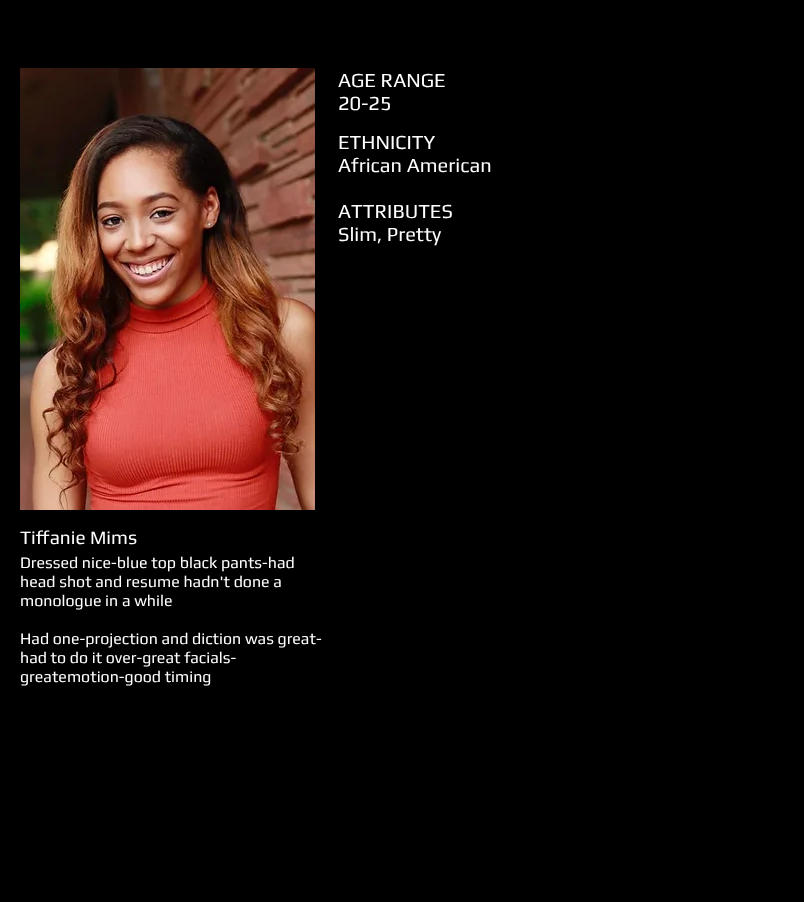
<svg xmlns="http://www.w3.org/2000/svg" width="804" height="902">
<rect width="100%" height="100%" fill="#000"/>
<image x="20" y="68" width="295" height="442" href="media/1.png"/>
<text x="338" y="87" style="font-family:Play;font-size:20px;fill:#fff">AGE RANGE</text>
<text x="338" y="110" style="font-family:Play;font-size:20px;fill:#fff">20-25</text>
<text x="338" y="149" style="font-family:Play;font-size:20px;fill:#fff">ETHNICITY</text>
<text x="338" y="172" style="font-family:Play;font-size:20px;fill:#fff">African American</text>
<text x="338" y="218" style="font-family:Play;font-size:20px;fill:#fff">ATTRIBUTES</text>
<text x="338" y="241" style="font-family:Play;font-size:20px;fill:#fff">Slim, Pretty</text>
<text x="20" y="544" style="font-family:Play;font-size:19px;fill:#fff">Tiffanie Mims</text>
<text x="20" y="568" style="font-family:Play;font-size:16px;fill:#fff">Dressed nice-blue top black pants-had</text>
<text x="20" y="587" style="font-family:Play;font-size:16px;fill:#fff">head shot and resume hadn't done a</text>
<text x="20" y="606" style="font-family:Play;font-size:16px;fill:#fff">monologue in a while</text>
<text x="20" y="644" style="font-family:Play;font-size:16px;fill:#fff">Had one-projection and diction was great-</text>
<text x="20" y="663" style="font-family:Play;font-size:16px;fill:#fff">had to do it over-great facials-</text>
<text x="20" y="682" style="font-family:Play;font-size:16px;fill:#fff">greatemotion-good timing</text>
</svg>
